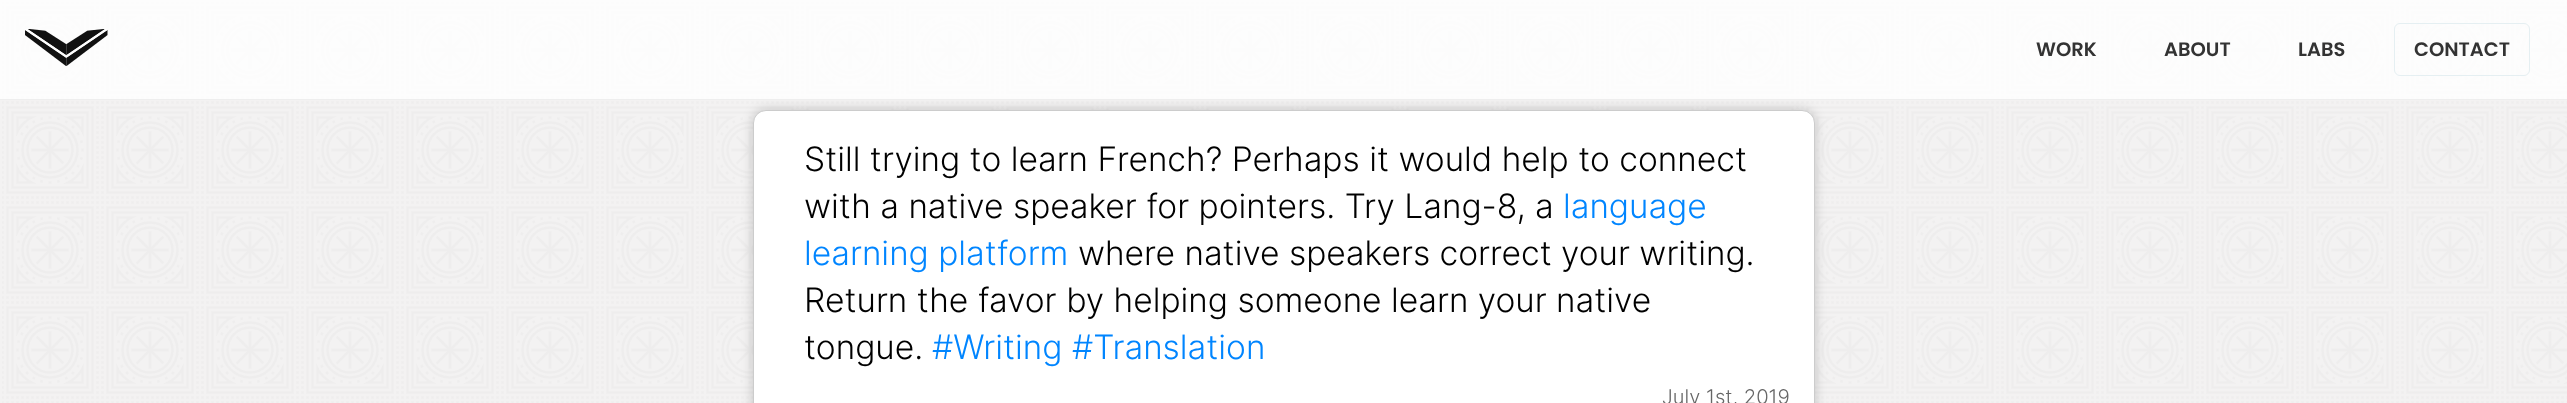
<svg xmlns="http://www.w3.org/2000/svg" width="2567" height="403">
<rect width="100%" height="100%" fill="#f3f2f2"/>
<image x="2" y="2" width="2565" height="401" href="media/1.png"/>
<rect x="753" y="110" width="1062" height="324" rx="13" fill="#00000033" filter="blur(6px)"/>
<rect width="2567" height="99" fill="#ffffffcc"/>
<rect y="99" width="2567" height="1" fill="#eee"/>
<image x="25" y="29" width="83" height="37" href="media/2.png"/>
<text x="2036" y="56" style="font-family:Poppins;font-size:19.5px;font-weight:600;fill:#333">WORK</text>
<text x="2164" y="56" style="font-family:Poppins;font-size:19.5px;font-weight:600;fill:#333">ABOUT</text>
<text x="2298" y="56" style="font-family:Poppins;font-size:19.5px;font-weight:600;fill:#333">LABS</text>
<rect x="2394.5" y="23.5" width="135" height="52" rx="5.5" fill="none" stroke="#e5eff2"/>
<text x="2414" y="56" style="font-family:Poppins;font-size:19.5px;font-weight:600;fill:#333">CONTACT</text>
<rect x="753.5" y="110.5" width="1061" height="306" rx="12.5" fill="#fff" stroke="#ccc"/>
<text x="804" y="171" style="font-family:Inter;font-size:33.6px;font-weight:300;fill:#000">Still trying to learn French? Perhaps it would help to connect</text>
<text x="804" y="218" style="font-family:Inter;font-size:33.6px;font-weight:300;fill:#000">with a native speaker for pointers. Try Lang-8, a</text>
<text x="1563" y="218" style="font-family:Inter;font-size:33.6px;font-weight:300;fill:#0085ff">language</text>
<text x="804" y="265" style="font-family:Inter;font-size:33.6px;font-weight:300;fill:#0085ff">learning platform</text>
<text x="1078" y="265" style="font-family:Inter;font-size:33.6px;font-weight:300;fill:#000">where native speakers correct your writing.</text>
<text x="804" y="312" style="font-family:Inter;font-size:33.6px;font-weight:300;fill:#000">Return the favor by helping someone learn your native</text>
<text x="804" y="359" style="font-family:Inter;font-size:33.6px;font-weight:300;fill:#000">tongue.</text>
<text x="932" y="359" style="font-family:Inter;font-size:33.6px;font-weight:300;fill:#0085ff">#Writing #Translation</text>
<text x="1662" y="404" style="font-family:Inter;font-size:20.25px;font-weight:300;fill:#666">July 1st, 2019</text>
</svg>
